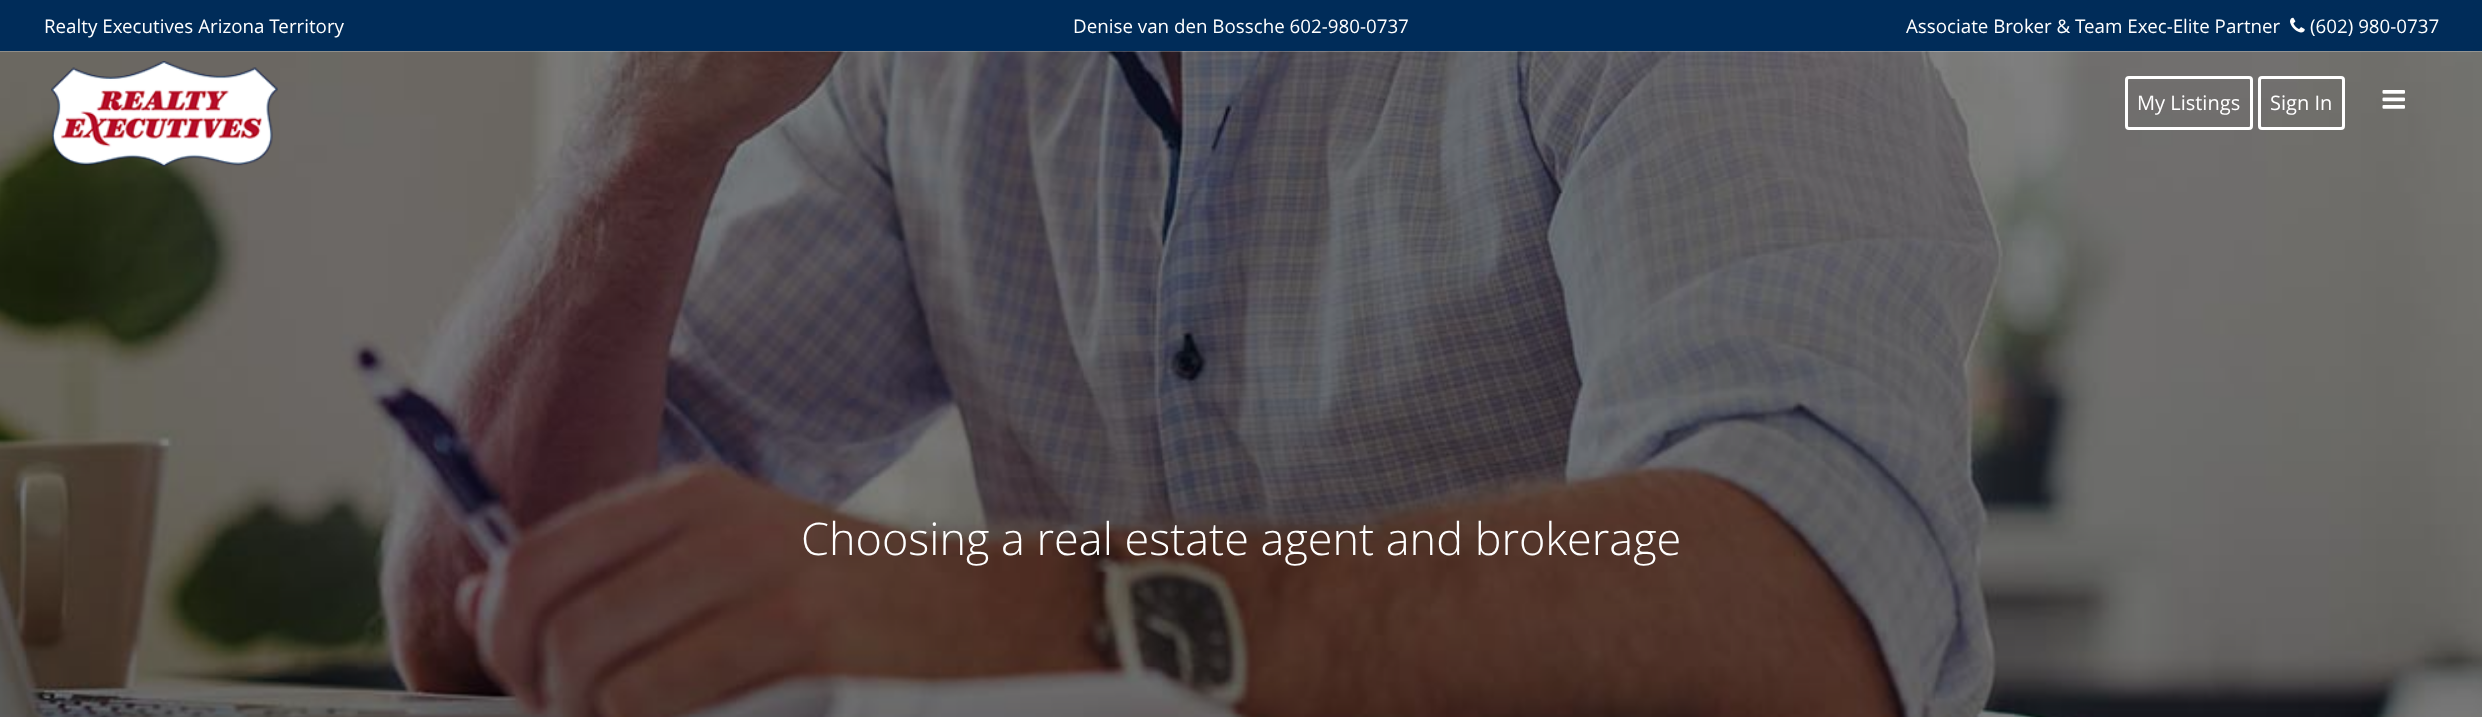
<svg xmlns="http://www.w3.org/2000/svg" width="2482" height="717">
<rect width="100%" height="100%" fill="#fff"/>
<rect width="2482" height="51" fill="#002c59"/>
<text x="44" y="33" style="font-family:Open Sans;font-size:18.75px;fill:#fff">Realty Executives Arizona Territory</text>
<text x="1073" y="33" style="font-family:Open Sans;font-size:18.75px;fill:#fff">Denise van den Bossche 602-980-0737</text>
<text x="1906" y="33" style="font-family:Open Sans;font-size:18.75px;fill:#fff">Associate Broker &amp; Team Exec-Elite Partner</text>
<image x="2290" y="17" width="15" height="16" href="media/1.png"/>
<text x="2310" y="33" style="font-family:Open Sans;font-size:18.75px;fill:#fff">(602) 980-0737</text>
<image x="0" y="51" width="2482" height="666" href="media/4.png"/>
<image x="51" y="61" width="227" height="106" href="media/2.png"/>
<rect x="2126.5" y="77.5" width="125" height="51" rx="2.5" fill="none" stroke="#fff" stroke-width="3"/>
<text x="2137" y="110" style="font-family:Open Sans;font-size:20px;fill:#fff">My Listings</text>
<rect x="2259.5" y="77.5" width="84" height="51" rx="2.5" fill="none" stroke="#fff" stroke-width="3"/>
<text x="2270" y="110" style="font-family:Open Sans;font-size:20px;fill:#fff">Sign In</text>
<image x="2382" y="90" width="23" height="19" href="media/3.png"/>
<text x="801" y="555" style="font-family:Open Sans;font-size:45px;font-weight:300;fill:#fff">Choosing a real estate agent and brokerage</text>
</svg>
